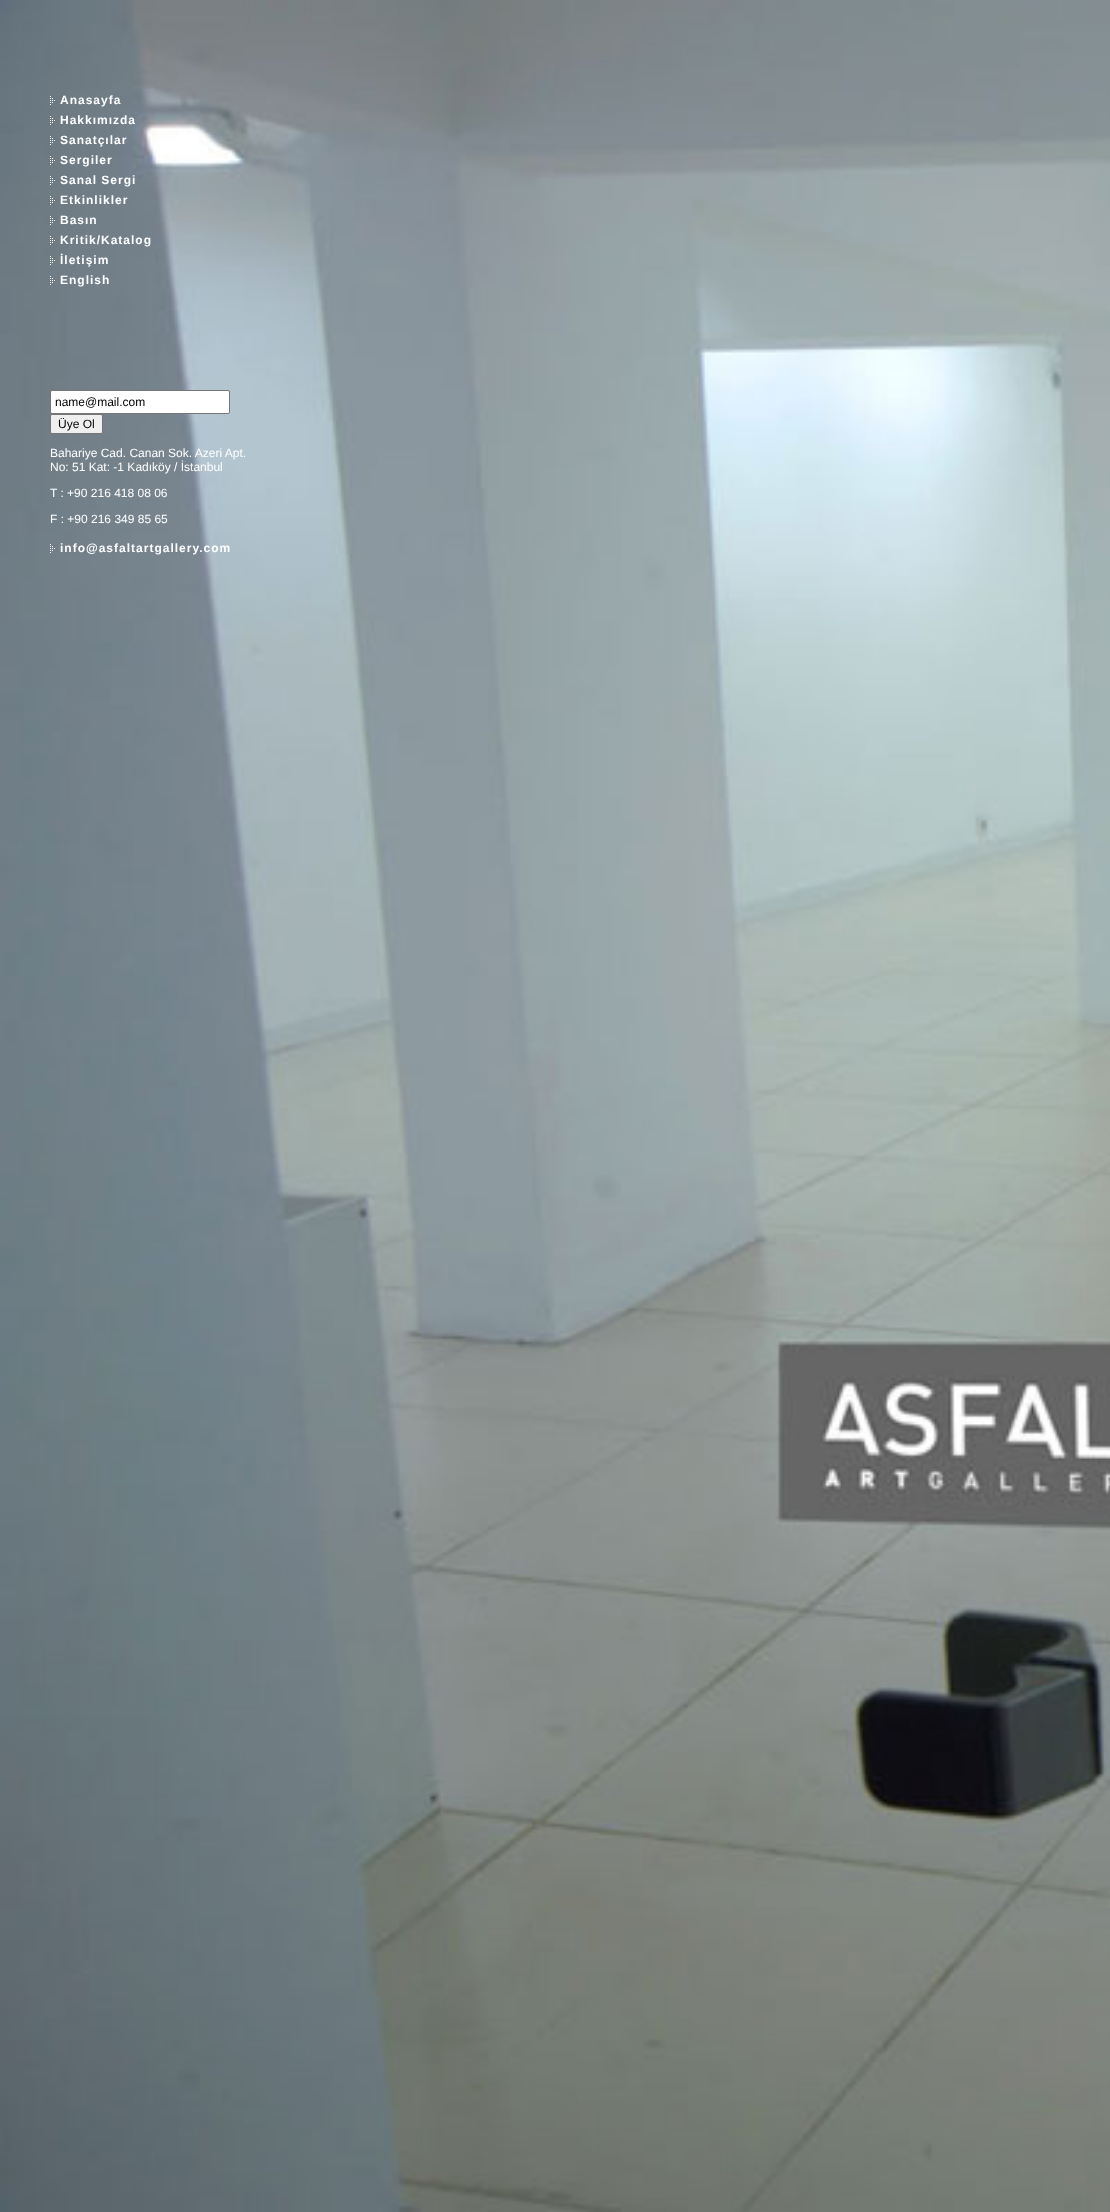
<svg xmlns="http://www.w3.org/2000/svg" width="1110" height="2212">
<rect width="100%" height="100%" fill="#fff"/>
<image x="0" y="0" width="1110" height="2212" href="media/1.png"/>
<image x="50" y="96" width="5" height="9" href="media/2.png"/>
<text x="60" y="104" style="font-family:Liberation Sans;font-size:12px;font-weight:bold;letter-spacing:1px;fill:#fff">Anasayfa</text>
<image x="50" y="116" width="5" height="9" href="media/3.png"/>
<text x="60" y="124" style="font-family:Liberation Sans;font-size:12px;font-weight:bold;letter-spacing:1px;fill:#fff">Hakkımızda</text>
<image x="50" y="136" width="5" height="9" href="media/3.png"/>
<text x="60" y="144" style="font-family:Liberation Sans;font-size:12px;font-weight:bold;letter-spacing:1px;fill:#fff">Sanatçılar</text>
<image x="50" y="156" width="5" height="9" href="media/4.png"/>
<text x="60" y="164" style="font-family:Liberation Sans;font-size:12px;font-weight:bold;letter-spacing:1px;fill:#fff">Sergiler</text>
<image x="50" y="176" width="5" height="9" href="media/5.png"/>
<text x="60" y="184" style="font-family:Liberation Sans;font-size:12px;font-weight:bold;letter-spacing:1px;fill:#fff">Sanal Sergi</text>
<image x="50" y="196" width="5" height="9" href="media/6.png"/>
<text x="60" y="204" style="font-family:Liberation Sans;font-size:12px;font-weight:bold;letter-spacing:1px;fill:#fff">Etkinlikler</text>
<image x="50" y="216" width="5" height="9" href="media/7.png"/>
<text x="60" y="224" style="font-family:Liberation Sans;font-size:12px;font-weight:bold;letter-spacing:1px;fill:#fff">Basın</text>
<image x="50" y="236" width="5" height="9" href="media/8.png"/>
<text x="60" y="244" style="font-family:Liberation Sans;font-size:12px;font-weight:bold;letter-spacing:1px;fill:#fff">Kritik/Katalog</text>
<image x="50" y="256" width="5" height="9" href="media/9.png"/>
<text x="60" y="264" style="font-family:Liberation Sans;font-size:12px;font-weight:bold;letter-spacing:1px;fill:#fff">İletişim</text>
<image x="50" y="276" width="5" height="9" href="media/10.png"/>
<text x="60" y="284" style="font-family:Liberation Sans;font-size:12px;font-weight:bold;letter-spacing:1px;fill:#fff">English</text>
<rect x="50.5" y="390.5" width="179" height="23" rx="1.5" fill="#fff" stroke="#767676"/>
<text x="55" y="406" style="font-family:Liberation Sans;font-size:12px;fill:#000">name@mail.com</text>
<rect x="50.5" y="414.5" width="52" height="19" rx="1.5" fill="#efefef" stroke="#767676"/>
<text x="58" y="428" style="font-family:Liberation Sans;font-size:12px;fill:#000">Üye Ol</text>
<text x="50" y="457" style="font-family:Liberation Sans;font-size:12px;fill:#fff">Bahariye Cad. Canan Sok. Azeri Apt.</text>
<text x="50" y="471" style="font-family:Liberation Sans;font-size:12px;fill:#fff">No: 51 Kat: -1 Kadıköy / İstanbul</text>
<text x="50" y="497" style="font-family:Liberation Sans;font-size:12px;fill:#fff">T : +90 216 418 08 06</text>
<text x="50" y="523" style="font-family:Liberation Sans;font-size:12px;fill:#fff">F : +90 216 349 85 65</text>
<image x="50" y="544" width="5" height="9" href="media/11.png"/>
<text x="60" y="552" style="font-family:Liberation Sans;font-size:12px;font-weight:bold;letter-spacing:1px;fill:#fff">info@asfaltartgallery.com</text>
</svg>
